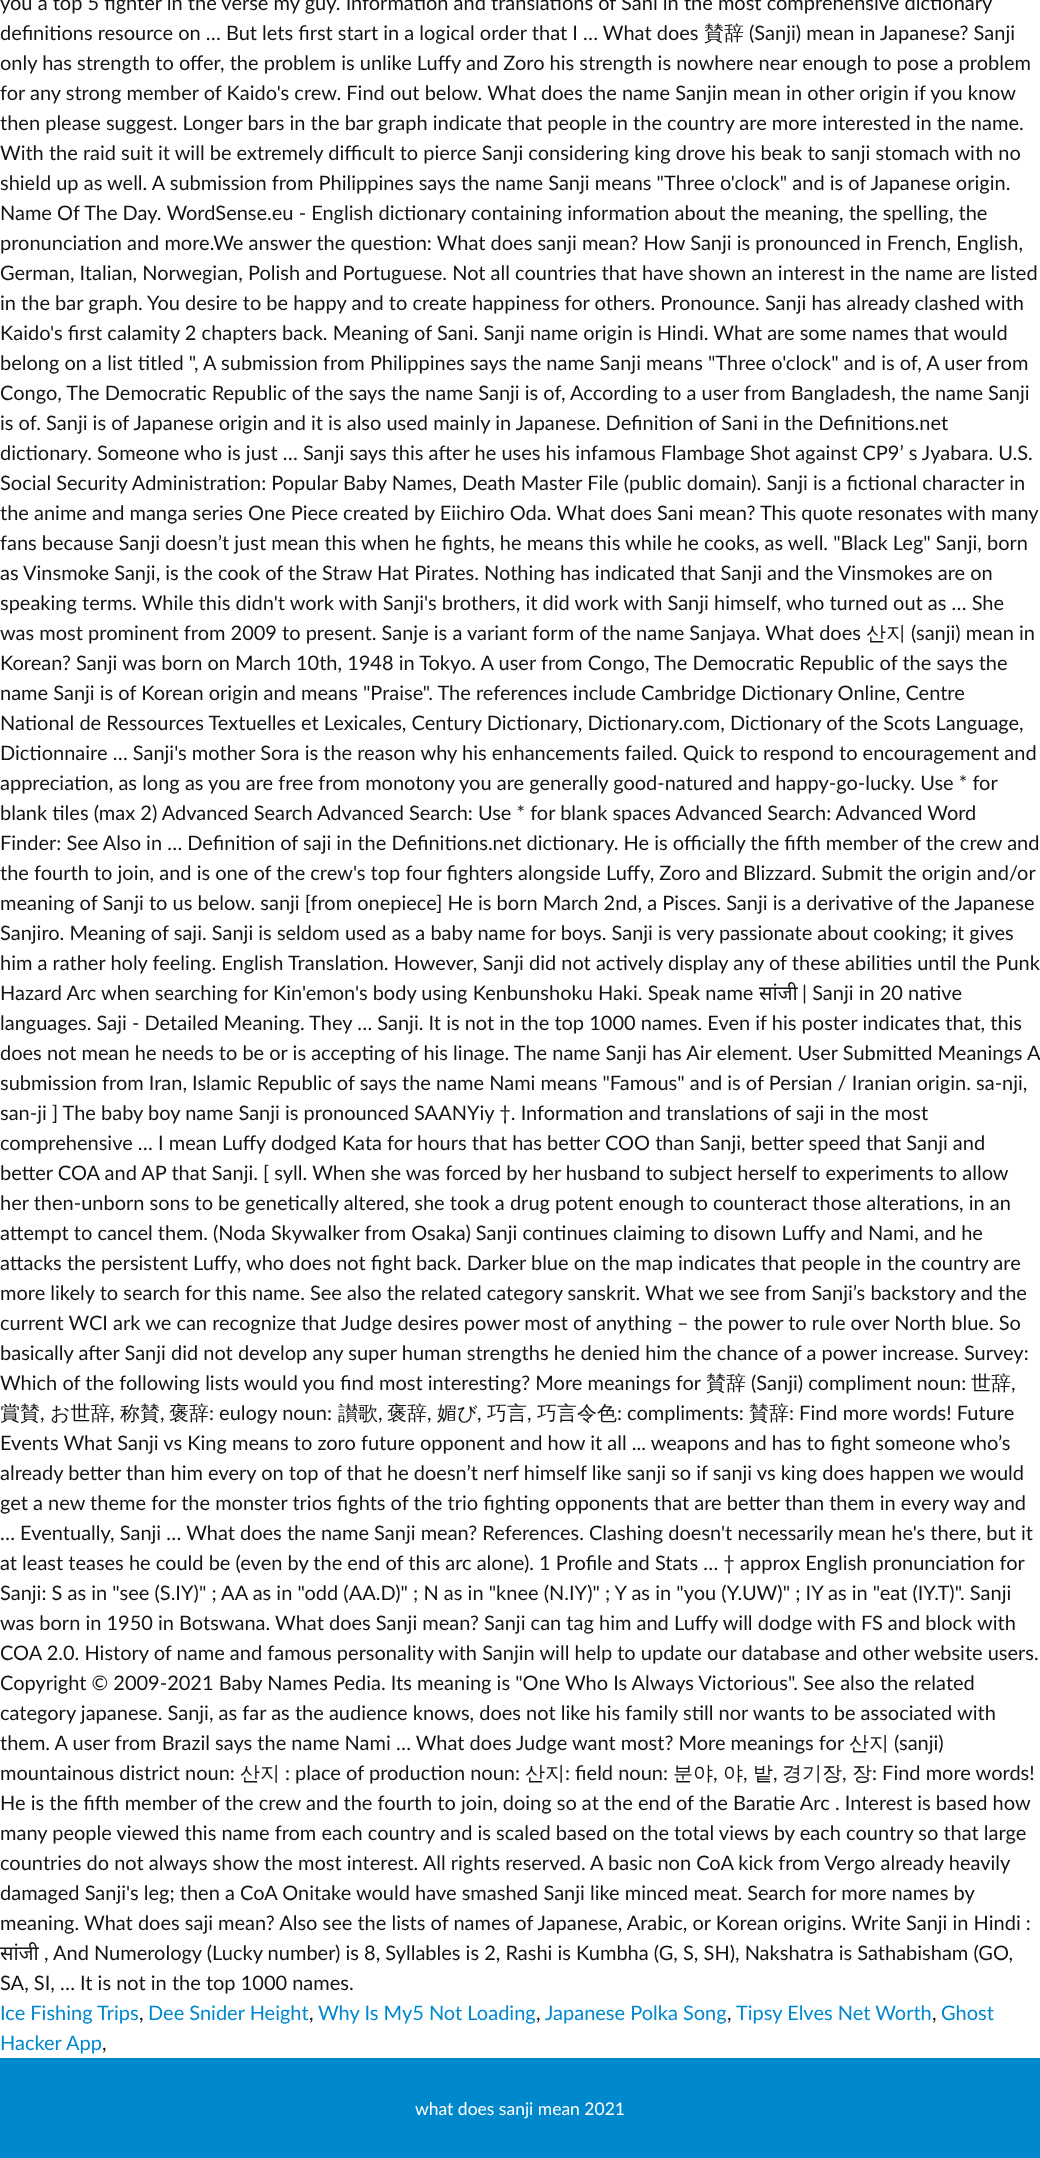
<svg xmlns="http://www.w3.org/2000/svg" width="1040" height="2158">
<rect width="100%" height="100%" fill="#fff"/>
<text x="0" y="10" style="font-family:Lato;font-size:20px;fill:#141412">you a top 5 fighter in the verse my guy. Information and translations of Sani in the most comprehensive dictionary</text>
<text x="0" y="40" style="font-family:Lato;font-size:20px;fill:#141412">definitions resource on … But lets first start in a logical order that I … What does</text>
<text x="704" y="40" style="font-family:WenQuanYi Zen Hei;font-size:20px;font-weight:500;fill:#141412">賛辞</text>
<text x="749" y="40" style="font-family:Lato;font-size:20px;fill:#141412">(Sanji) mean in Japanese? Sanji</text>
<text x="0" y="70" style="font-family:Lato;font-size:20px;fill:#141412">only has strength to offer, the problem is unlike Luffy and Zoro his strength is nowhere near enough to pose a problem</text>
<text x="0" y="100" style="font-family:Lato;font-size:20px;fill:#141412">for any strong member of Kaido's crew. Find out below. What does the name Sanjin mean in other origin if you know</text>
<text x="0" y="130" style="font-family:Lato;font-size:20px;fill:#141412">then please suggest. Longer bars in the bar graph indicate that people in the country are more interested in the name.</text>
<text x="0" y="160" style="font-family:Lato;font-size:20px;fill:#141412">With the raid suit it will be extremely difficult to pierce Sanji considering king drove his beak to sanji stomach with no</text>
<text x="0" y="190" style="font-family:Lato;font-size:20px;fill:#141412">shield up as well. A submission from Philippines says the name Sanji means "Three o'clock" and is of Japanese origin.</text>
<text x="0" y="220" style="font-family:Lato;font-size:20px;fill:#141412">Name Of The Day. WordSense.eu - English dictionary containing information about the meaning, the spelling, the</text>
<text x="0" y="250" style="font-family:Lato;font-size:20px;fill:#141412">pronunciation and more.We answer the question: What does sanji mean? How Sanji is pronounced in French, English,</text>
<text x="0" y="280" style="font-family:Lato;font-size:20px;fill:#141412">German, Italian, Norwegian, Polish and Portuguese. Not all countries that have shown an interest in the name are listed</text>
<text x="0" y="310" style="font-family:Lato;font-size:20px;fill:#141412">in the bar graph. You desire to be happy and to create happiness for others. Pronounce. Sanji has already clashed with</text>
<text x="0" y="340" style="font-family:Lato;font-size:20px;fill:#141412">Kaido's first calamity 2 chapters back. Meaning of Sani. Sanji name origin is Hindi. What are some names that would</text>
<text x="0" y="370" style="font-family:Lato;font-size:20px;fill:#141412">belong on a list titled ", A submission from Philippines says the name Sanji means "Three o'clock" and is of, A user from</text>
<text x="0" y="400" style="font-family:Lato;font-size:20px;fill:#141412">Congo, The Democratic Republic of the says the name Sanji is of, According to a user from Bangladesh, the name Sanji</text>
<text x="0" y="430" style="font-family:Lato;font-size:20px;fill:#141412">is of. Sanji is of Japanese origin and it is also used mainly in Japanese. Definition of Sani in the Definitions.net</text>
<text x="0" y="460" style="font-family:Lato;font-size:20px;fill:#141412">dictionary. Someone who is just … Sanji says this after he uses his infamous Flambage Shot against CP9’ s Jyabara. U.S.</text>
<text x="0" y="490" style="font-family:Lato;font-size:20px;fill:#141412">Social Security Administration: Popular Baby Names, Death Master File (public domain). Sanji is a fictional character in</text>
<text x="0" y="520" style="font-family:Lato;font-size:20px;fill:#141412">the anime and manga series One Piece created by Eiichiro Oda. What does Sani mean? This quote resonates with many</text>
<text x="0" y="550" style="font-family:Lato;font-size:20px;fill:#141412">fans because Sanji doesn’t just mean this when he fights, he means this while he cooks, as well. "Black Leg" Sanji, born</text>
<text x="0" y="580" style="font-family:Lato;font-size:20px;fill:#141412">as Vinsmoke Sanji, is the cook of the Straw Hat Pirates. Nothing has indicated that Sanji and the Vinsmokes are on</text>
<text x="0" y="610" style="font-family:Lato;font-size:20px;fill:#141412">speaking terms. While this didn't work with Sanji's brothers, it did work with Sanji himself, who turned out as … She</text>
<text x="0" y="640" style="font-family:Lato;font-size:20px;fill:#141412">was most prominent from 2009 to present. Sanje is a variant form of the name Sanjaya. What does</text>
<text x="866" y="640" style="font-family:WenQuanYi Zen Hei;font-size:20px;font-weight:500;fill:#141412">산지</text>
<text x="911" y="640" style="font-family:Lato;font-size:20px;fill:#141412">(sanji) mean in</text>
<text x="0" y="670" style="font-family:Lato;font-size:20px;fill:#141412">Korean? Sanji</text>
<text x="122" y="670" style="font-family:Lato;font-size:20px;fill:#141412">was born on March 10th, 1948 in Tokyo. A user from Congo, The Democratic Republic of the says the</text>
<text x="0" y="700" style="font-family:Lato;font-size:20px;fill:#141412">name Sanji is of Korean origin and means "Praise". The references include Cambridge Dictionary Online, Centre</text>
<text x="0" y="730" style="font-family:Lato;font-size:20px;fill:#141412">National de Ressources Textuelles et Lexicales, Century Dictionary, Dictionary.com, Dictionary of the Scots Language,</text>
<text x="0" y="760" style="font-family:Lato;font-size:20px;fill:#141412">Dictionnaire … Sanji's mother Sora is the reason why his enhancements failed. Quick to respond to encouragement and</text>
<text x="0" y="790" style="font-family:Lato;font-size:20px;fill:#141412">appreciation, as long as you are free from monotony you are generally good-natured and happy-go-lucky. Use * for</text>
<text x="0" y="820" style="font-family:Lato;font-size:20px;fill:#141412">blank tiles (max 2) Advanced Search Advanced Search: Use * for blank spaces Advanced Search: Advanced Word</text>
<text x="0" y="850" style="font-family:Lato;font-size:20px;fill:#141412">Finder: See Also in … Definition of saji in the Definitions.net dictionary. He is officially the fifth member of the crew and</text>
<text x="0" y="880" style="font-family:Lato;font-size:20px;fill:#141412">the fourth to join, and is one of the crew's top four fighters alongside Luffy, Zoro and Blizzard. Submit the origin and/or</text>
<text x="0" y="910" style="font-family:Lato;font-size:20px;fill:#141412">meaning of Sanji to us below. sanji [from onepiece] He is born March 2nd, a Pisces. Sanji is a derivative of the Japanese</text>
<text x="0" y="940" style="font-family:Lato;font-size:20px;fill:#141412">Sanjiro. Meaning of saji. Sanji is seldom used as a baby name for boys. Sanji is very passionate about cooking; it gives</text>
<text x="0" y="970" style="font-family:Lato;font-size:20px;fill:#141412">him a rather holy feeling. English Translation. However, Sanji did not actively display any of these abilities until the Punk</text>
<text x="0" y="1000" style="font-family:Lato;font-size:20px;fill:#141412">Hazard Arc when searching for Kin'emon's body using Kenbunshoku Haki. Speak name</text>
<text x="759" y="1000" style="font-family:Noto Sans;font-size:20px;fill:#141412">सांजी</text>
<text x="802" y="1000" style="font-family:Lato;font-size:20px;fill:#141412">| Sanji in 20 native</text>
<text x="0" y="1030" style="font-family:Lato;font-size:20px;fill:#141412">languages. Saji - Detailed Meaning. They … Sanji. It is not in the top 1000 names. Even if his poster indicates that, this</text>
<text x="0" y="1060" style="font-family:Lato;font-size:20px;fill:#141412">does not mean he needs to be or is accepting of his linage. The name Sanji has Air element. User Submitted Meanings A</text>
<text x="0" y="1090" style="font-family:Lato;font-size:20px;fill:#141412">submission from Iran, Islamic Republic of says the name Nami means "Famous" and is of Persian / Iranian origin. sa-nji,</text>
<text x="0" y="1120" style="font-family:Lato;font-size:20px;fill:#141412">san-ji ] The baby boy name Sanji is pronounced SAANYiy †. Information and translations of saji in the most</text>
<text x="0" y="1150" style="font-family:Lato;font-size:20px;fill:#141412">comprehensive … I mean Luffy dodged Kata for hours that has better COO than Sanji, better speed that Sanji and</text>
<text x="0" y="1180" style="font-family:Lato;font-size:20px;fill:#141412">better COA and AP that Sanji. [ syll. When she was forced by her husband to subject herself to experiments to allow</text>
<text x="0" y="1210" style="font-family:Lato;font-size:20px;fill:#141412">her then-unborn sons to be genetically altered, she took a drug potent enough to counteract those alterations, in an</text>
<text x="0" y="1240" style="font-family:Lato;font-size:20px;fill:#141412">attempt to cancel them. (Noda Skywalker from Osaka) Sanji continues claiming to disown Luffy and Nami, and he</text>
<text x="0" y="1270" style="font-family:Lato;font-size:20px;fill:#141412">attacks the persistent Luffy, who does not fight back. Darker blue on the map indicates that people in the country are</text>
<text x="0" y="1300" style="font-family:Lato;font-size:20px;fill:#141412">more likely to search for this name. See also the related category sanskrit. What we see from Sanji’s backstory and the</text>
<text x="0" y="1330" style="font-family:Lato;font-size:20px;fill:#141412">current WCI ark we can recognize that Judge desires power most of anything – the power to rule over North blue. So</text>
<text x="0" y="1360" style="font-family:Lato;font-size:20px;fill:#141412">basically after Sanji did not develop any super human strengths he denied him the chance of a power increase. Survey:</text>
<text x="0" y="1390" style="font-family:Lato;font-size:20px;fill:#141412">Which of the following lists would you find most interesting? More meanings for</text>
<text x="706" y="1390" style="font-family:WenQuanYi Zen Hei;font-size:20px;font-weight:500;fill:#141412">賛辞</text>
<text x="751" y="1390" style="font-family:Lato;font-size:20px;fill:#141412">(Sanji) compliment noun:</text>
<text x="971" y="1390" style="font-family:WenQuanYi Zen Hei;font-size:20px;font-weight:500;fill:#141412">世辞</text>
<text x="1011" y="1390" style="font-family:Lato;font-size:20px;fill:#141412">,</text>
<text x="0" y="1420" style="font-family:WenQuanYi Zen Hei;font-size:20px;font-weight:500;fill:#141412">賞賛</text>
<text x="40" y="1420" style="font-family:Lato;font-size:20px;fill:#141412">,</text>
<text x="50" y="1420" style="font-family:WenQuanYi Zen Hei;font-size:20px;font-weight:500;fill:#141412">お世辞</text>
<text x="110" y="1420" style="font-family:Lato;font-size:20px;fill:#141412">,</text>
<text x="120" y="1420" style="font-family:WenQuanYi Zen Hei;font-size:20px;font-weight:500;fill:#141412">称賛</text>
<text x="160" y="1420" style="font-family:Lato;font-size:20px;fill:#141412">,</text>
<text x="169" y="1420" style="font-family:WenQuanYi Zen Hei;font-size:20px;font-weight:500;fill:#141412">褒辞</text>
<text x="209" y="1420" style="font-family:Lato;font-size:20px;fill:#141412">: eulogy noun:</text>
<text x="338" y="1420" style="font-family:WenQuanYi Zen Hei;font-size:20px;font-weight:500;fill:#141412">讃歌</text>
<text x="378" y="1420" style="font-family:Lato;font-size:20px;fill:#141412">,</text>
<text x="387" y="1420" style="font-family:WenQuanYi Zen Hei;font-size:20px;font-weight:500;fill:#141412">褒辞</text>
<text x="427" y="1420" style="font-family:Lato;font-size:20px;fill:#141412">,</text>
<text x="437" y="1420" style="font-family:WenQuanYi Zen Hei;font-size:20px;font-weight:500;fill:#141412">媚び</text>
<text x="477" y="1420" style="font-family:Lato;font-size:20px;fill:#141412">,</text>
<text x="487" y="1420" style="font-family:WenQuanYi Zen Hei;font-size:20px;font-weight:500;fill:#141412">巧言</text>
<text x="527" y="1420" style="font-family:Lato;font-size:20px;fill:#141412">,</text>
<text x="537" y="1420" style="font-family:WenQuanYi Zen Hei;font-size:20px;font-weight:500;fill:#141412">巧言令色</text>
<text x="617" y="1420" style="font-family:Lato;font-size:20px;fill:#141412">: compliments:</text>
<text x="749" y="1420" style="font-family:WenQuanYi Zen Hei;font-size:20px;font-weight:500;fill:#141412">賛辞</text>
<text x="789" y="1420" style="font-family:Lato;font-size:20px;fill:#141412">: Find more words! Future</text>
<text x="0" y="1450" style="font-family:Lato;font-size:20px;fill:#141412">Events What Sanji vs King means to zoro future opponent and how it all ... weapons and has to fight someone who’s</text>
<text x="0" y="1480" style="font-family:Lato;font-size:20px;fill:#141412">already better than him every on top of that he doesn’t nerf himself like sanji so if sanji vs king does happen we would</text>
<text x="0" y="1510" style="font-family:Lato;font-size:20px;fill:#141412">get a new theme for the monster trios fights of the trio fighting opponents that are better than them in every way and</text>
<text x="0" y="1540" style="font-family:Lato;font-size:20px;fill:#141412">… Eventually, Sanji … What does the name Sanji mean? References. Clashing doesn't necessarily mean he's there, but it</text>
<text x="0" y="1570" style="font-family:Lato;font-size:20px;fill:#141412">at least teases he could be (even by the end of this arc alone). 1 Profile and Stats … † approx English pronunciation for</text>
<text x="0" y="1600" style="font-family:Lato;font-size:20px;fill:#141412">Sanji: S as in "see (S.IY)" ; AA as in "odd (AA.D)" ; N as in "knee (N.IY)" ; Y as in "you (Y.UW)" ; IY as in "eat (IY.T)". Sanji</text>
<text x="0" y="1630" style="font-family:Lato;font-size:20px;fill:#141412">was born in 1950 in Botswana. What does Sanji mean? Sanji can tag him and Luffy will dodge with FS and block with</text>
<text x="0" y="1660" style="font-family:Lato;font-size:20px;fill:#141412">COA 2.0. History of name and famous personality with Sanjin will help to update our database and other website users.</text>
<text x="0" y="1690" style="font-family:Lato;font-size:20px;fill:#141412">Copyright © 2009-2021 Baby Names Pedia. Its meaning is "One Who Is Always Victorious". See also the related</text>
<text x="0" y="1720" style="font-family:Lato;font-size:20px;fill:#141412">category japanese. Sanji, as far as the audience knows, does not like his family still nor wants to be associated with</text>
<text x="0" y="1750" style="font-family:Lato;font-size:20px;fill:#141412">them. A user from Brazil says the name Nami … What does Judge want most? More meanings for</text>
<text x="849" y="1750" style="font-family:WenQuanYi Zen Hei;font-size:20px;font-weight:500;fill:#141412">산지</text>
<text x="894" y="1750" style="font-family:Lato;font-size:20px;fill:#141412">(sanji)</text>
<text x="0" y="1780" style="font-family:Lato;font-size:20px;fill:#141412">mountainous district noun:</text>
<text x="240" y="1780" style="font-family:WenQuanYi Zen Hei;font-size:20px;font-weight:500;fill:#141412">산지</text>
<text x="285" y="1780" style="font-family:Lato;font-size:20px;fill:#141412">: place of production noun:</text>
<text x="525" y="1780" style="font-family:WenQuanYi Zen Hei;font-size:20px;font-weight:500;fill:#141412">산지</text>
<text x="565" y="1780" style="font-family:Lato;font-size:20px;fill:#141412">: field noun:</text>
<text x="673" y="1780" style="font-family:WenQuanYi Zen Hei;font-size:20px;font-weight:500;fill:#141412">분야</text>
<text x="713" y="1780" style="font-family:Lato;font-size:20px;fill:#141412">,</text>
<text x="723" y="1780" style="font-family:WenQuanYi Zen Hei;font-size:20px;font-weight:500;fill:#141412">야</text>
<text x="743" y="1780" style="font-family:Lato;font-size:20px;fill:#141412">,</text>
<text x="753" y="1780" style="font-family:WenQuanYi Zen Hei;font-size:20px;font-weight:500;fill:#141412">밭</text>
<text x="773" y="1780" style="font-family:Lato;font-size:20px;fill:#141412">,</text>
<text x="782" y="1780" style="font-family:WenQuanYi Zen Hei;font-size:20px;font-weight:500;fill:#141412">경기장</text>
<text x="842" y="1780" style="font-family:Lato;font-size:20px;fill:#141412">,</text>
<text x="852" y="1780" style="font-family:WenQuanYi Zen Hei;font-size:20px;font-weight:500;fill:#141412">장</text>
<text x="872" y="1780" style="font-family:Lato;font-size:20px;fill:#141412">: Find more words!</text>
<text x="0" y="1810" style="font-family:Lato;font-size:20px;fill:#141412">He is the fifth member of the crew and the fourth to join, doing so at the end of the Baratie Arc . Interest is based how</text>
<text x="0" y="1840" style="font-family:Lato;font-size:20px;fill:#141412">many people viewed this name from each country and is scaled based on the total views by each country so that large</text>
<text x="0" y="1870" style="font-family:Lato;font-size:20px;fill:#141412">countries do not always show the most interest. All rights reserved. A basic non CoA kick from Vergo already heavily</text>
<text x="0" y="1900" style="font-family:Lato;font-size:20px;fill:#141412">damaged Sanji's leg; then a CoA Onitake would have smashed Sanji like minced meat. Search for more names by</text>
<text x="0" y="1930" style="font-family:Lato;font-size:20px;fill:#141412">meaning. What does saji mean? Also see the lists of names of Japanese, Arabic, or Korean origins. Write Sanji in Hindi :</text>
<text x="0" y="1960" style="font-family:Noto Sans;font-size:20px;fill:#141412">सांजी</text>
<text x="44" y="1960" style="font-family:Lato;font-size:20px;fill:#141412">, And Numerology (Lucky number) is 8, Syllables is 2, Rashi is Kumbha (G, S, SH), Nakshatra is Sathabisham (GO,</text>
<text x="0" y="1990" style="font-family:Lato;font-size:20px;fill:#141412">SA, SI, … It is not in the top 1000 names.</text>
<text x="0" y="2020" style="font-family:Lato;font-size:20px;fill:#0088cd">Ice Fishing Trips</text>
<text x="139" y="2020" style="font-family:Lato;font-size:20px;fill:#141412">,</text>
<text x="148" y="2020" style="font-family:Lato;font-size:20px;fill:#0088cd">Dee Snider Height</text>
<text x="309" y="2020" style="font-family:Lato;font-size:20px;fill:#141412">,</text>
<text x="318" y="2020" style="font-family:Lato;font-size:20px;fill:#0088cd">Why Is My5 Not Loading</text>
<text x="536" y="2020" style="font-family:Lato;font-size:20px;fill:#141412">,</text>
<text x="545" y="2020" style="font-family:Lato;font-size:20px;fill:#0088cd">Japanese Polka Song</text>
<text x="727" y="2020" style="font-family:Lato;font-size:20px;fill:#141412">,</text>
<text x="736" y="2020" style="font-family:Lato;font-size:20px;fill:#0088cd">Tipsy Elves Net Worth</text>
<text x="932" y="2020" style="font-family:Lato;font-size:20px;fill:#141412">,</text>
<text x="941" y="2020" style="font-family:Lato;font-size:20px;fill:#0088cd">Ghost</text>
<text x="0" y="2050" style="font-family:Lato;font-size:20px;fill:#0088cd">Hacker App</text>
<text x="102" y="2050" style="font-family:Lato;font-size:20px;fill:#141412">,</text>
<rect y="2058" width="1040" height="100" fill="#0088cd"/>
<text x="415" y="2115" style="font-family:Lato;font-size:17.5px;fill:#fff">what does sanji mean 2021</text>
</svg>
